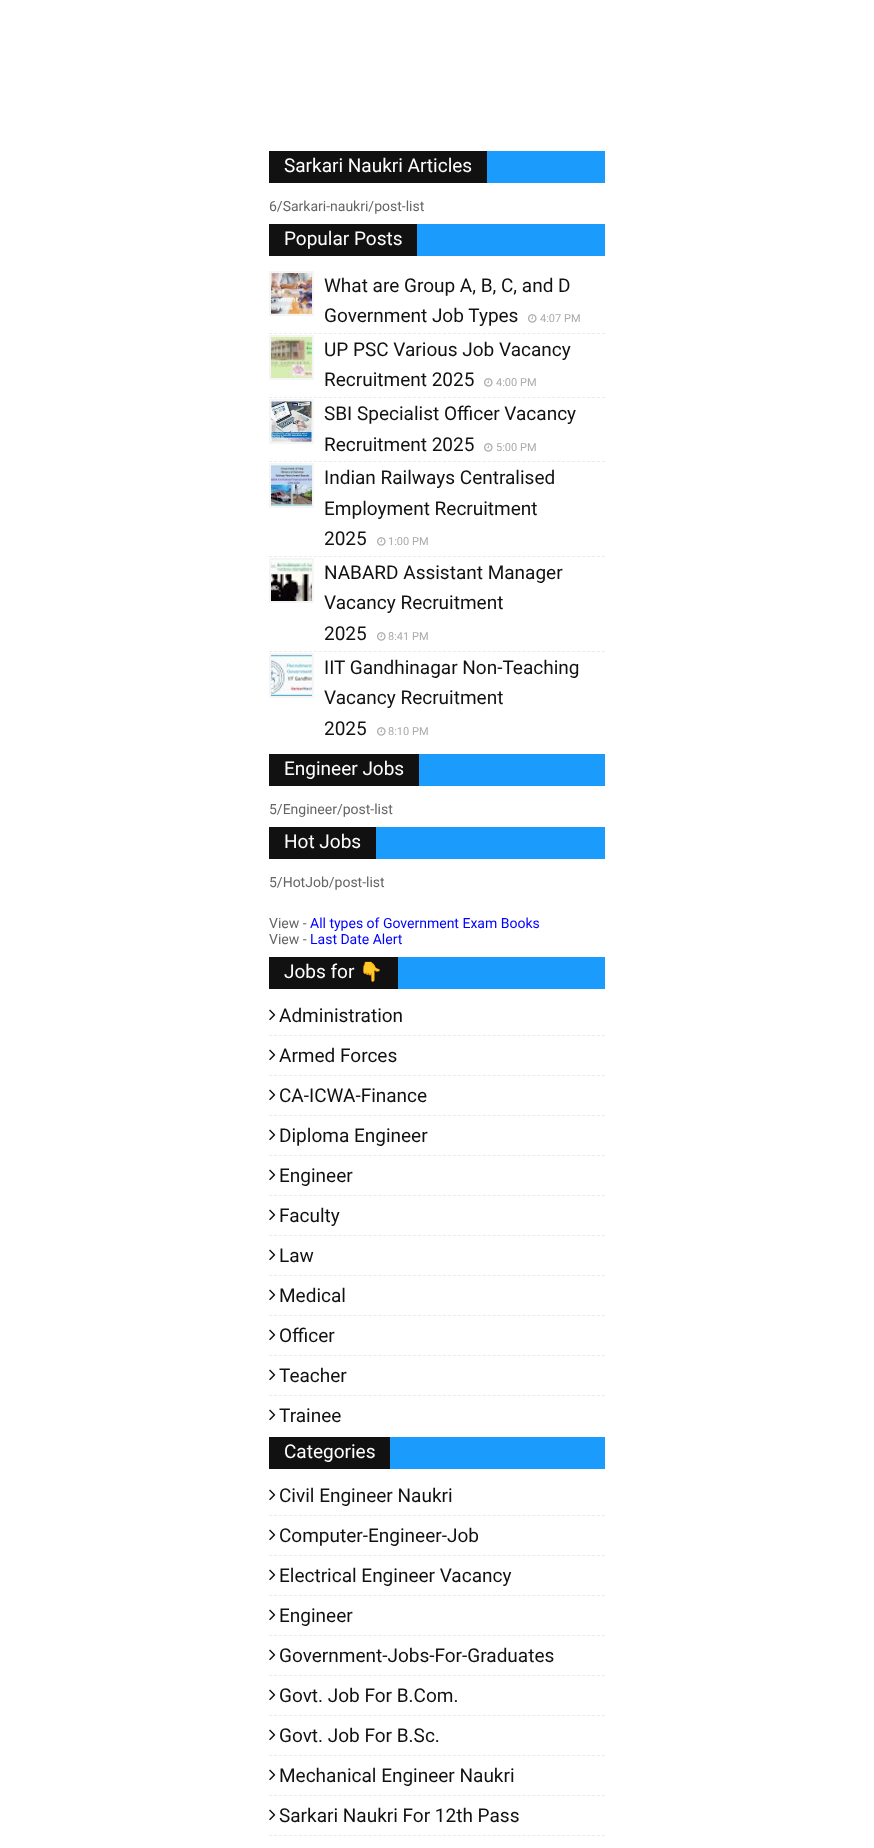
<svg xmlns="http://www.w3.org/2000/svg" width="874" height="1848">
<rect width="100%" height="100%" fill="#fff"/>
<rect x="487" y="151" width="118" height="32" fill="#1b9cfc"/>
<rect x="269" y="151" width="218" height="32" fill="#111"/>
<text x="284" y="172" style="font-family:Roboto;font-size:19px;fill:#fff">Sarkari Naukri Articles</text>
<text x="269" y="211" style="font-family:Roboto;font-size:14px;fill:#656565">6/Sarkari-naukri/post-list</text>
<rect x="417" y="224" width="188" height="32" fill="#1b9cfc"/>
<rect x="269" y="224" width="148" height="32" fill="#111"/>
<text x="284" y="245" style="font-family:Roboto;font-size:19px;fill:#fff">Popular Posts</text>
<rect x="269" y="271" width="45" height="45" fill="#f5f5f5"/>
<image x="271" y="273" width="41" height="41" href="media/1.png"/>
<text x="324" y="292" style="font-family:Roboto;font-size:19px;fill:#111">What are Group A, B, C, and D</text>
<text x="324" y="322" style="font-family:Roboto;font-size:19px;fill:#111">Government Job Types</text>
<image x="528" y="314" width="9" height="9" href="media/2.png"/>
<text x="540" y="322" style="font-family:Roboto;font-size:11px;fill:#aaa">4:07 PM</text>
<path d="M269 333.5h336" fill="none" stroke="#ebebeb" stroke-dasharray="3 1.97"/>
<rect x="269" y="335" width="45" height="45" fill="#f5f5f5"/>
<image x="271" y="337" width="41" height="41" href="media/3.png"/>
<text x="324" y="356" style="font-family:Roboto;font-size:19px;fill:#111">UP PSC Various Job Vacancy</text>
<text x="324" y="386" style="font-family:Roboto;font-size:19px;fill:#111">Recruitment 2025</text>
<image x="484" y="378" width="9" height="9" href="media/2.png"/>
<text x="496" y="386" style="font-family:Roboto;font-size:11px;fill:#aaa">4:00 PM</text>
<path d="M269 397.5h336" fill="none" stroke="#ebebeb" stroke-dasharray="3 1.97"/>
<rect x="269" y="399" width="45" height="45" fill="#f5f5f5"/>
<image x="271" y="401" width="41" height="41" href="media/4.png"/>
<text x="324" y="420" style="font-family:Roboto;font-size:19px;fill:#111">SBI Specialist Officer Vacancy</text>
<text x="324" y="451" style="font-family:Roboto;font-size:19px;fill:#111">Recruitment 2025</text>
<image x="484" y="443" width="9" height="9" href="media/2.png"/>
<text x="496" y="451" style="font-family:Roboto;font-size:11px;fill:#aaa">5:00 PM</text>
<path d="M269 461.5h336" fill="none" stroke="#ebebeb" stroke-dasharray="3 1.97"/>
<rect x="269" y="463" width="45" height="45" fill="#f5f5f5"/>
<image x="271" y="465" width="41" height="41" href="media/5.png"/>
<text x="324" y="484" style="font-family:Roboto;font-size:19px;fill:#111">Indian Railways Centralised</text>
<text x="324" y="515" style="font-family:Roboto;font-size:19px;fill:#111">Employment Recruitment</text>
<text x="324" y="545" style="font-family:Roboto;font-size:19px;fill:#111">2025</text>
<image x="377" y="537" width="9" height="9" href="media/2.png"/>
<text x="388" y="545" style="font-family:Roboto;font-size:11px;fill:#aaa">1:00 PM</text>
<path d="M269 556.5h336" fill="none" stroke="#ebebeb" stroke-dasharray="3 1.97"/>
<rect x="269" y="558" width="45" height="45" fill="#f5f5f5"/>
<image x="271" y="560" width="41" height="41" href="media/6.png"/>
<text x="324" y="579" style="font-family:Roboto;font-size:19px;fill:#111">NABARD Assistant Manager</text>
<text x="324" y="609" style="font-family:Roboto;font-size:19px;fill:#111">Vacancy Recruitment</text>
<text x="324" y="640" style="font-family:Roboto;font-size:19px;fill:#111">2025</text>
<image x="377" y="632" width="9" height="9" href="media/2.png"/>
<text x="388" y="640" style="font-family:Roboto;font-size:11px;fill:#aaa">8:41 PM</text>
<path d="M269 651.5h336" fill="none" stroke="#ebebeb" stroke-dasharray="3 1.97"/>
<rect x="269" y="653" width="45" height="45" fill="#f5f5f5"/>
<image x="271" y="655" width="41" height="41" href="media/7.png"/>
<text x="324" y="674" style="font-family:Roboto;font-size:19px;fill:#111">IIT Gandhinagar Non-Teaching</text>
<text x="324" y="704" style="font-family:Roboto;font-size:19px;fill:#111">Vacancy Recruitment</text>
<text x="324" y="735" style="font-family:Roboto;font-size:19px;fill:#111">2025</text>
<image x="377" y="727" width="9" height="9" href="media/2.png"/>
<text x="388" y="735" style="font-family:Roboto;font-size:11px;fill:#aaa">8:10 PM</text>
<rect x="419" y="754" width="186" height="32" fill="#1b9cfc"/>
<rect x="269" y="754" width="150" height="32" fill="#111"/>
<text x="284" y="775" style="font-family:Roboto;font-size:19px;fill:#fff">Engineer Jobs</text>
<text x="269" y="814" style="font-family:Roboto;font-size:14px;fill:#656565">5/Engineer/post-list</text>
<rect x="376" y="827" width="229" height="32" fill="#1b9cfc"/>
<rect x="269" y="827" width="107" height="32" fill="#111"/>
<text x="284" y="848" style="font-family:Roboto;font-size:19px;fill:#fff">Hot Jobs</text>
<text x="269" y="887" style="font-family:Roboto;font-size:14px;fill:#656565">5/HotJob/post-list</text>
<text x="269" y="928" style="font-family:Roboto;font-size:14px;fill:#656565">View -</text>
<text x="310" y="928" style="font-family:Roboto;font-size:14px;fill:#00f">All types of Government Exam Books</text>
<text x="269" y="944" style="font-family:Roboto;font-size:14px;fill:#656565">View -</text>
<text x="310" y="944" style="font-family:Roboto;font-size:14px;fill:#00f">Last Date Alert</text>
<rect x="398" y="957" width="207" height="32" fill="#1b9cfc"/>
<rect x="269" y="957" width="129" height="32" fill="#111"/>
<text x="284" y="978" style="font-family:Roboto;font-size:19px;fill:#fff">Jobs for</text>
<text x="359" y="978" style="font-family:Noto Color Emoji;font-size:19px;fill:#fff">👇</text>
<image x="269" y="1009" width="7" height="12" href="media/8.png"/>
<text x="279" y="1022" style="font-family:Roboto;font-size:19px;fill:#111">Administration</text>
<path d="M269 1035.5h336" fill="none" stroke="#ebebeb" stroke-dasharray="3 1.97"/>
<image x="269" y="1049" width="7" height="12" href="media/8.png"/>
<text x="279" y="1062" style="font-family:Roboto;font-size:19px;fill:#111">Armed Forces</text>
<path d="M269 1075.5h336" fill="none" stroke="#ebebeb" stroke-dasharray="3 1.97"/>
<image x="269" y="1089" width="7" height="12" href="media/8.png"/>
<text x="279" y="1102" style="font-family:Roboto;font-size:19px;fill:#111">CA-ICWA-Finance</text>
<path d="M269 1115.5h336" fill="none" stroke="#ebebeb" stroke-dasharray="3 1.97"/>
<image x="269" y="1129" width="7" height="12" href="media/8.png"/>
<text x="279" y="1142" style="font-family:Roboto;font-size:19px;fill:#111">Diploma Engineer</text>
<path d="M269 1155.5h336" fill="none" stroke="#ebebeb" stroke-dasharray="3 1.97"/>
<image x="269" y="1169" width="7" height="12" href="media/8.png"/>
<text x="279" y="1182" style="font-family:Roboto;font-size:19px;fill:#111">Engineer</text>
<path d="M269 1195.5h336" fill="none" stroke="#ebebeb" stroke-dasharray="3 1.97"/>
<image x="269" y="1209" width="7" height="12" href="media/8.png"/>
<text x="279" y="1222" style="font-family:Roboto;font-size:19px;fill:#111">Faculty</text>
<path d="M269 1235.5h336" fill="none" stroke="#ebebeb" stroke-dasharray="3 1.97"/>
<image x="269" y="1249" width="7" height="12" href="media/8.png"/>
<text x="279" y="1262" style="font-family:Roboto;font-size:19px;fill:#111">Law</text>
<path d="M269 1275.5h336" fill="none" stroke="#ebebeb" stroke-dasharray="3 1.97"/>
<image x="269" y="1289" width="7" height="12" href="media/8.png"/>
<text x="279" y="1302" style="font-family:Roboto;font-size:19px;fill:#111">Medical</text>
<path d="M269 1315.5h336" fill="none" stroke="#ebebeb" stroke-dasharray="3 1.97"/>
<image x="269" y="1329" width="7" height="12" href="media/8.png"/>
<text x="279" y="1342" style="font-family:Roboto;font-size:19px;fill:#111">Officer</text>
<path d="M269 1355.5h336" fill="none" stroke="#ebebeb" stroke-dasharray="3 1.97"/>
<image x="269" y="1369" width="7" height="12" href="media/8.png"/>
<text x="279" y="1382" style="font-family:Roboto;font-size:19px;fill:#111">Teacher</text>
<path d="M269 1395.5h336" fill="none" stroke="#ebebeb" stroke-dasharray="3 1.97"/>
<image x="269" y="1409" width="7" height="12" href="media/8.png"/>
<text x="279" y="1422" style="font-family:Roboto;font-size:19px;fill:#111">Trainee</text>
<rect x="390" y="1437" width="215" height="32" fill="#1b9cfc"/>
<rect x="269" y="1437" width="121" height="32" fill="#111"/>
<text x="284" y="1458" style="font-family:Roboto;font-size:19px;fill:#fff">Categories</text>
<image x="269" y="1489" width="7" height="12" href="media/8.png"/>
<text x="279" y="1502" style="font-family:Roboto;font-size:19px;fill:#111">Civil Engineer Naukri</text>
<path d="M269 1515.5h336" fill="none" stroke="#ebebeb" stroke-dasharray="3 1.97"/>
<image x="269" y="1529" width="7" height="12" href="media/8.png"/>
<text x="279" y="1542" style="font-family:Roboto;font-size:19px;fill:#111">Computer-Engineer-Job</text>
<path d="M269 1555.5h336" fill="none" stroke="#ebebeb" stroke-dasharray="3 1.97"/>
<image x="269" y="1569" width="7" height="12" href="media/8.png"/>
<text x="279" y="1582" style="font-family:Roboto;font-size:19px;fill:#111">Electrical Engineer Vacancy</text>
<path d="M269 1595.5h336" fill="none" stroke="#ebebeb" stroke-dasharray="3 1.97"/>
<image x="269" y="1609" width="7" height="12" href="media/8.png"/>
<text x="279" y="1622" style="font-family:Roboto;font-size:19px;fill:#111">Engineer</text>
<path d="M269 1635.5h336" fill="none" stroke="#ebebeb" stroke-dasharray="3 1.97"/>
<image x="269" y="1649" width="7" height="12" href="media/8.png"/>
<text x="279" y="1662" style="font-family:Roboto;font-size:19px;fill:#111">Government-Jobs-For-Graduates</text>
<path d="M269 1675.5h336" fill="none" stroke="#ebebeb" stroke-dasharray="3 1.97"/>
<image x="269" y="1689" width="7" height="12" href="media/8.png"/>
<text x="279" y="1702" style="font-family:Roboto;font-size:19px;fill:#111">Govt. Job For B.Com.</text>
<path d="M269 1715.5h336" fill="none" stroke="#ebebeb" stroke-dasharray="3 1.97"/>
<image x="269" y="1729" width="7" height="12" href="media/8.png"/>
<text x="279" y="1742" style="font-family:Roboto;font-size:19px;fill:#111">Govt. Job For B.Sc.</text>
<path d="M269 1755.5h336" fill="none" stroke="#ebebeb" stroke-dasharray="3 1.97"/>
<image x="269" y="1769" width="7" height="12" href="media/8.png"/>
<text x="279" y="1782" style="font-family:Roboto;font-size:19px;fill:#111">Mechanical Engineer Naukri</text>
<path d="M269 1795.5h336" fill="none" stroke="#ebebeb" stroke-dasharray="3 1.97"/>
<image x="269" y="1809" width="7" height="12" href="media/8.png"/>
<text x="279" y="1822" style="font-family:Roboto;font-size:19px;fill:#111">Sarkari Naukri For 12th Pass</text>
<path d="M269 1835.5h336" fill="none" stroke="#ebebeb" stroke-dasharray="3 1.97"/>
</svg>
